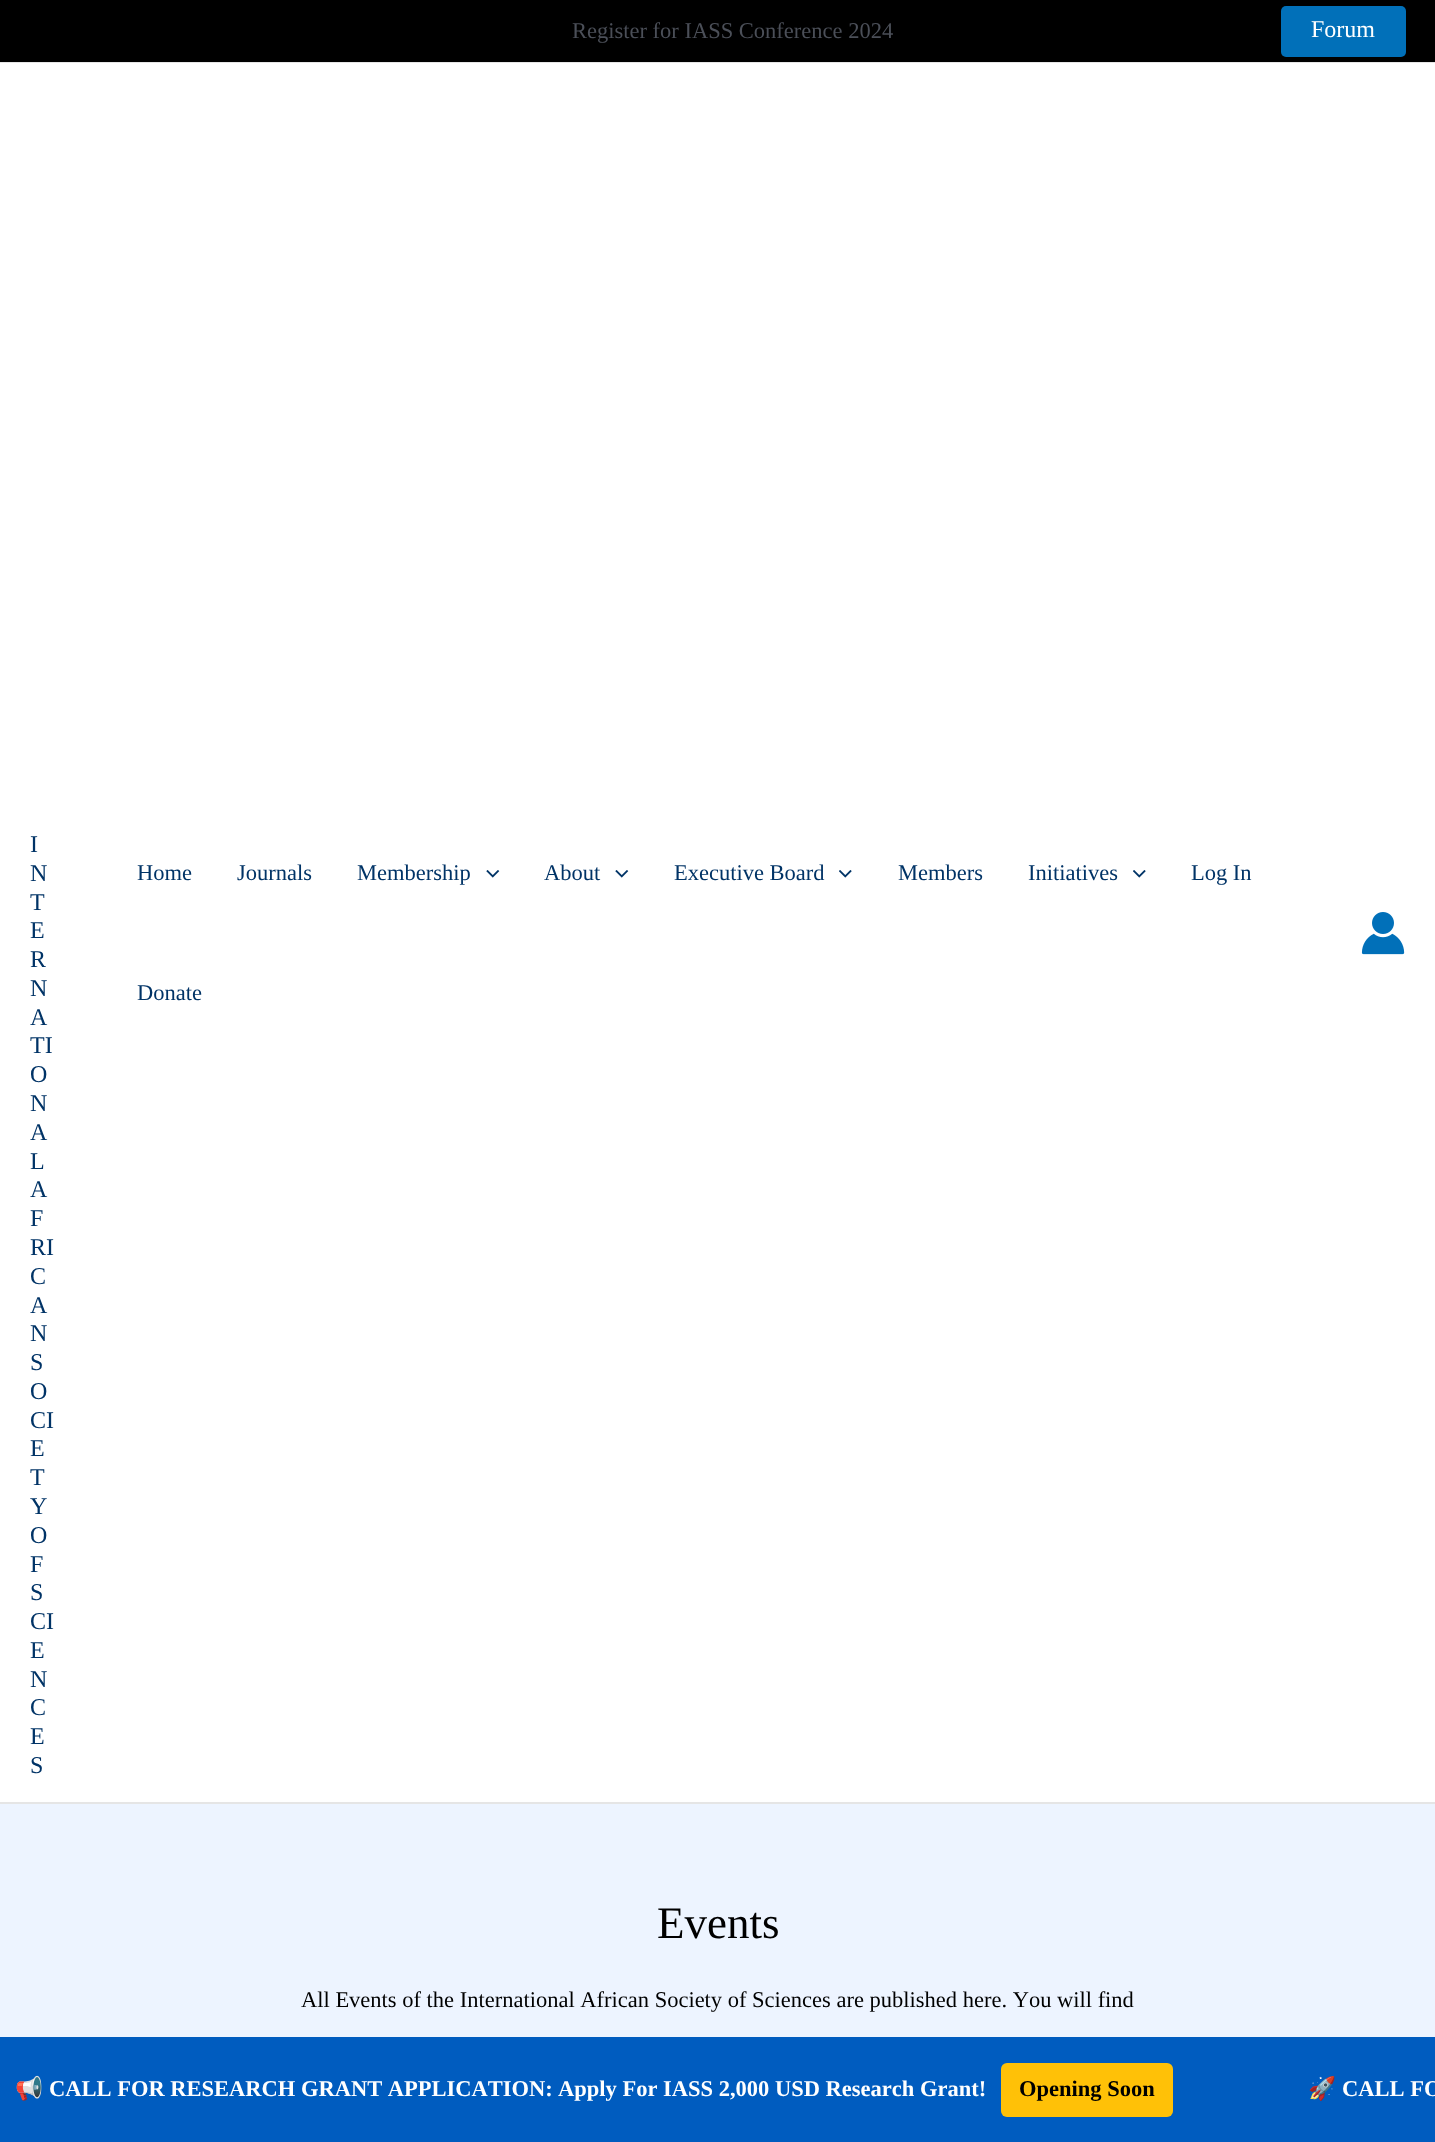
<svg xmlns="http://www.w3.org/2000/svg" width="1435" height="2142">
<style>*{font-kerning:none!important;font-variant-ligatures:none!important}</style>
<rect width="100%" height="100%" fill="#edf4ff"/>
<rect width="1435" height="62" fill="#000"/>
<rect y="62" width="1435" height="1" fill="#e5e5e5"/>
<text x="572" y="38" style="font-family:Liberation Serif;font-size:22.5px;fill:#4b4f58">Register for IASS Conference 2024</text>
<rect x="1281" y="6" width="125" height="51" rx="5" fill="#0170b9"/>
<text x="1311" y="37" style="font-family:Liberation Serif;font-size:24px;fill:#fff">Forum</text>
<rect y="63" width="1435" height="1739" fill="#fff"/>
<rect y="1802" width="1435" height="2" fill="#e5e5e5"/>
<text x="30" y="852" style="font-family:Liberation Serif;font-size:24px;fill:#036">I</text>
<text x="30" y="881" style="font-family:Liberation Serif;font-size:24px;fill:#036">N</text>
<text x="30" y="910" style="font-family:Liberation Serif;font-size:24px;fill:#036">T</text>
<text x="30" y="938" style="font-family:Liberation Serif;font-size:24px;fill:#036">E</text>
<text x="30" y="967" style="font-family:Liberation Serif;font-size:24px;fill:#036">R</text>
<text x="30" y="996" style="font-family:Liberation Serif;font-size:24px;fill:#036">N</text>
<text x="30" y="1025" style="font-family:Liberation Serif;font-size:24px;fill:#036">A</text>
<text x="30" y="1053" style="font-family:Liberation Serif;font-size:24px;fill:#036">TI</text>
<text x="30" y="1082" style="font-family:Liberation Serif;font-size:24px;fill:#036">O</text>
<text x="30" y="1111" style="font-family:Liberation Serif;font-size:24px;fill:#036">N</text>
<text x="30" y="1140" style="font-family:Liberation Serif;font-size:24px;fill:#036">A</text>
<text x="30" y="1169" style="font-family:Liberation Serif;font-size:24px;fill:#036">L</text>
<text x="30" y="1197" style="font-family:Liberation Serif;font-size:24px;fill:#036">A</text>
<text x="30" y="1226" style="font-family:Liberation Serif;font-size:24px;fill:#036">F</text>
<text x="30" y="1255" style="font-family:Liberation Serif;font-size:24px;fill:#036">RI</text>
<text x="30" y="1284" style="font-family:Liberation Serif;font-size:24px;fill:#036">C</text>
<text x="30" y="1313" style="font-family:Liberation Serif;font-size:24px;fill:#036">A</text>
<text x="30" y="1341" style="font-family:Liberation Serif;font-size:24px;fill:#036">N</text>
<text x="30" y="1370" style="font-family:Liberation Serif;font-size:24px;fill:#036">S</text>
<text x="30" y="1399" style="font-family:Liberation Serif;font-size:24px;fill:#036">O</text>
<text x="30" y="1428" style="font-family:Liberation Serif;font-size:24px;fill:#036">CI</text>
<text x="30" y="1456" style="font-family:Liberation Serif;font-size:24px;fill:#036">E</text>
<text x="30" y="1485" style="font-family:Liberation Serif;font-size:24px;fill:#036">T</text>
<text x="30" y="1514" style="font-family:Liberation Serif;font-size:24px;fill:#036">Y</text>
<text x="30" y="1543" style="font-family:Liberation Serif;font-size:24px;fill:#036">O</text>
<text x="30" y="1572" style="font-family:Liberation Serif;font-size:24px;fill:#036">F</text>
<text x="30" y="1600" style="font-family:Liberation Serif;font-size:24px;fill:#036">S</text>
<text x="30" y="1629" style="font-family:Liberation Serif;font-size:24px;fill:#036">CI</text>
<text x="30" y="1658" style="font-family:Liberation Serif;font-size:24px;fill:#036">E</text>
<text x="30" y="1687" style="font-family:Liberation Serif;font-size:24px;fill:#036">N</text>
<text x="30" y="1715" style="font-family:Liberation Serif;font-size:24px;fill:#036">C</text>
<text x="30" y="1744" style="font-family:Liberation Serif;font-size:24px;fill:#036">E</text>
<text x="30" y="1773" style="font-family:Liberation Serif;font-size:24px;fill:#036">S</text>
<text x="137" y="880" style="font-family:Liberation Serif;font-size:22.5px;fill:#036">Home</text>
<text x="237" y="880" style="font-family:Liberation Serif;font-size:22.5px;fill:#036">Journals</text>
<text x="357" y="880" style="font-family:Liberation Serif;font-size:22.5px;fill:#036">Membership</text>
<image x="486" y="870" width="14" height="8" href="media/1.png"/>
<text x="544" y="880" style="font-family:Liberation Serif;font-size:22.5px;fill:#036">About</text>
<image x="615" y="870" width="14" height="8" href="media/1.png"/>
<text x="674" y="880" style="font-family:Liberation Serif;font-size:22.5px;fill:#036">Executive Board</text>
<image x="839" y="870" width="13" height="8" href="media/2.png"/>
<text x="898" y="880" style="font-family:Liberation Serif;font-size:22.5px;fill:#036">Members</text>
<text x="1028" y="880" style="font-family:Liberation Serif;font-size:22.5px;fill:#036">Initiatives</text>
<image x="1133" y="870" width="13" height="8" href="media/2.png"/>
<text x="1191" y="880" style="font-family:Liberation Serif;font-size:22.5px;fill:#036">Log In</text>
<text x="137" y="1000" style="font-family:Liberation Serif;font-size:22.5px;fill:#036">Donate</text>
<image x="1361" y="912" width="44" height="43" href="media/3.png"/>
<text x="657" y="1938" style="font-family:Liberation Serif;font-size:45px;fill:#000">Events</text>
<text x="301" y="2007" style="font-family:Liberation Serif;font-size:22.5px;fill:#000">All Events of the International African Society of Sciences are published here. You</text>
<text x="1057" y="2007" style="font-family:Liberation Serif;font-size:22.5px;fill:#000">will find</text>
<rect y="2037" width="1435" height="105" fill="#005cbf"/>
<text x="15" y="2096" style="font-family:Noto Color Emoji;font-size:22.5px;font-weight:bold;fill:#fff">📢</text>
<text x="49" y="2096" style="font-family:Liberation Serif;font-size:22.5px;font-weight:bold;fill:#fff">CALL FOR RESEARCH GRANT APPLICATION:</text>
<text x="558" y="2096" style="font-family:Liberation Serif;font-size:22.5px;font-weight:bold;fill:#fff">Apply For IASS 2,000 USD Research Grant!</text>
<rect x="1001" y="2063" width="172" height="54" rx="6" fill="#ffc107"/>
<text x="1019" y="2096" style="font-family:Liberation Serif;font-size:22.5px;font-weight:bold;fill:#000">Opening Soon</text>
<text x="1308" y="2096" style="font-family:Noto Color Emoji;font-size:22.5px;font-weight:bold;fill:#fff">🚀</text>
<text x="1342" y="2096" style="font-family:Liberation Serif;font-size:22.5px;font-weight:bold;fill:#fff">CALL FO</text>
</svg>
